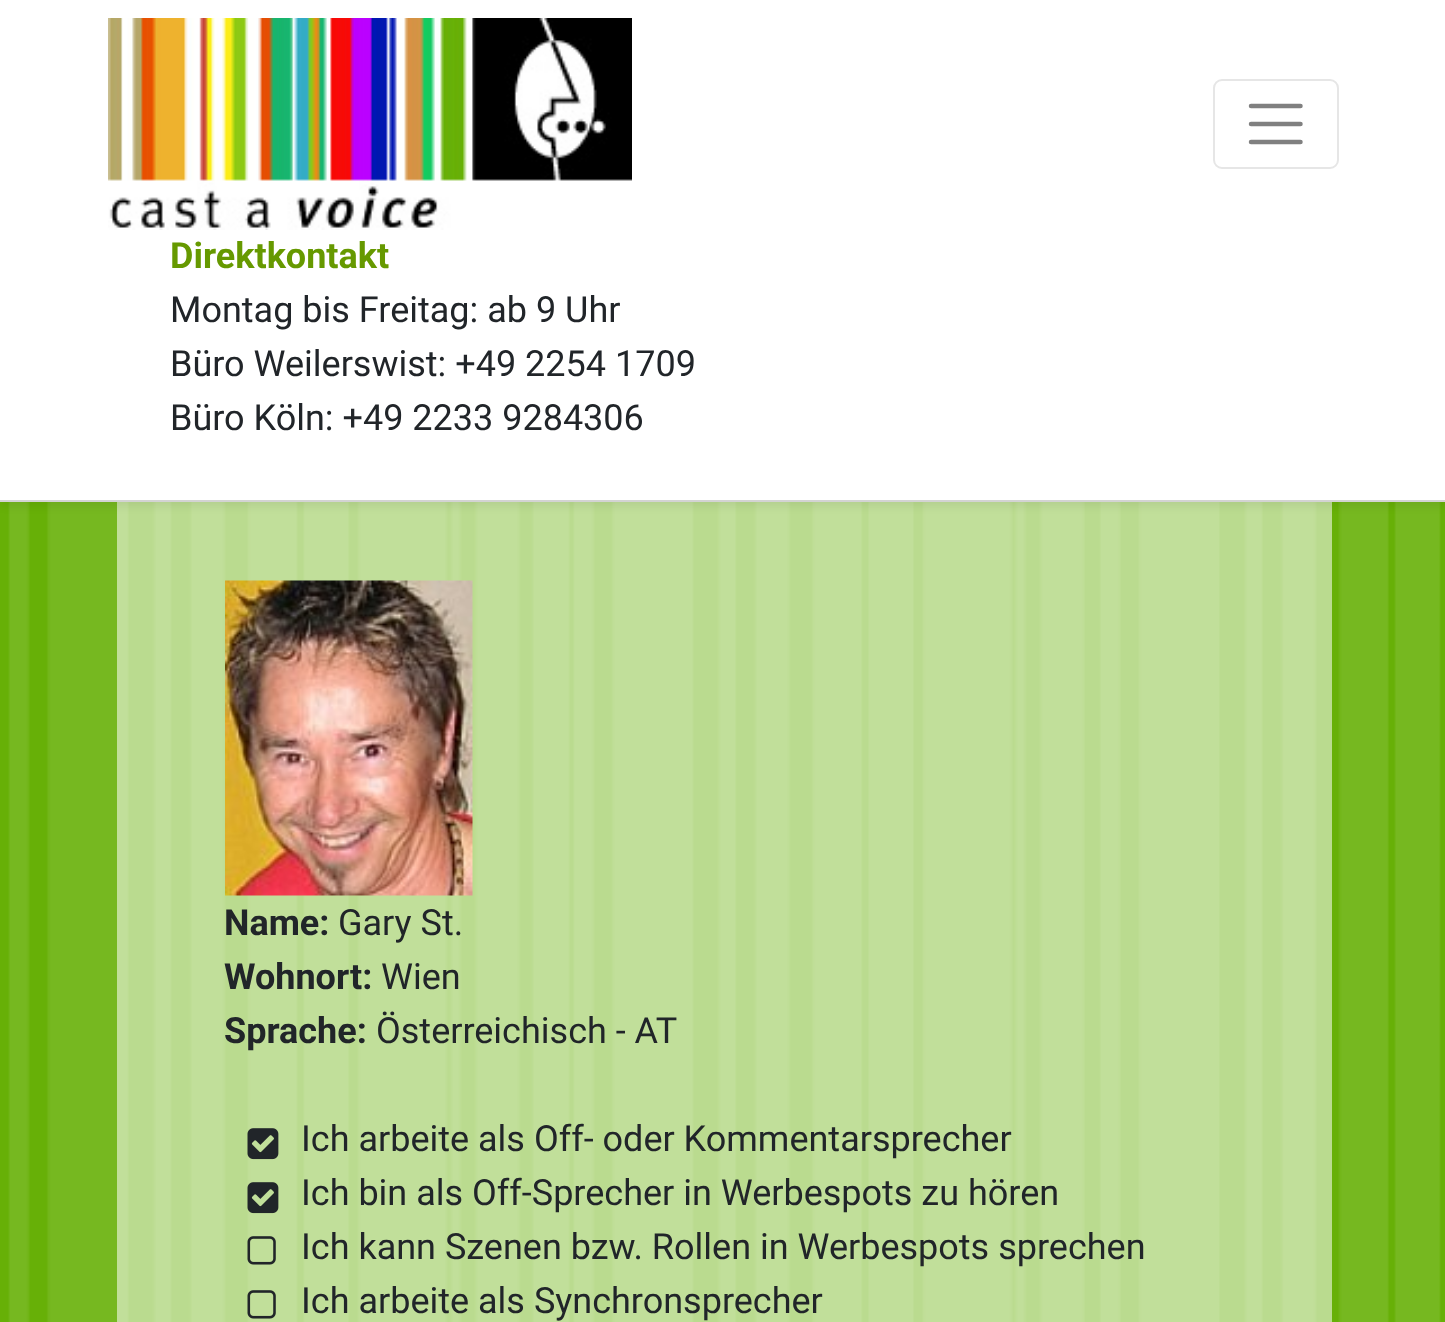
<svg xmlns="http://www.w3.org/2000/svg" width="1445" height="1322">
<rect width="100%" height="100%" fill="#fff"/>
<image x="0" y="502" width="1445" height="820" href="media/1.png"/>
<rect x="117" y="502" width="1215" height="820" fill="#ffffff8c"/>
<rect y="5" width="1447" height="501" fill="#00000012" filter="blur(4.5px)"/>
<rect width="1445" height="500" fill="#fff"/>
<rect y="500" width="1445" height="2" fill="#d3d3d3"/>
<image x="108" y="18" width="524" height="212" href="media/2.png"/>
<rect x="1214" y="80" width="124" height="88" rx="8" fill="none" stroke="#e6e6e6" stroke-width="2"/>
<path d="M1251 106h49.5m-49.5 18h49.5m-49.5 18h49.5" fill="none" stroke="#808080" stroke-width="4.5" stroke-linecap="round"/>
<text x="170" y="268" style="font-family:Roboto;font-size:36px;font-weight:bold;fill:#690">Direktkontakt</text>
<text x="170" y="322" style="font-family:Roboto;font-size:36px;fill:#212529">Montag bis Freitag: ab 9 Uhr</text>
<text x="170" y="376" style="font-family:Roboto;font-size:36px;fill:#212529">Büro Weilerswist: +49 2254 1709</text>
<text x="170" y="430" style="font-family:Roboto;font-size:36px;fill:#212529">Büro Köln: +49 2233 9284306</text>
<image x="225" y="580" width="248" height="316" href="media/3.png"/>
<text x="224" y="935" style="font-family:Roboto;font-size:36px;font-weight:bold;fill:#212529">Name:</text>
<text x="338" y="935" style="font-family:Roboto;font-size:36px;fill:#212529">Gary St.</text>
<text x="224" y="989" style="font-family:Roboto;font-size:36px;font-weight:bold;fill:#212529">Wohnort:</text>
<text x="381" y="989" style="font-family:Roboto;font-size:36px;fill:#212529">Wien</text>
<text x="224" y="1043" style="font-family:Roboto;font-size:36px;font-weight:bold;fill:#212529">Sprache:</text>
<text x="376" y="1043" style="font-family:Roboto;font-size:36px;fill:#212529">Österreichisch - AT</text>
<image x="247" y="1128" width="32" height="32" href="media/4.png"/>
<text x="301" y="1151" style="font-family:Roboto;font-size:36px;fill:#212529">Ich arbeite als Off- oder Kommentarsprecher</text>
<image x="247" y="1182" width="32" height="32" href="media/4.png"/>
<text x="301" y="1205" style="font-family:Roboto;font-size:36px;fill:#212529">Ich bin als Off-Sprecher in Werbespots zu hören</text>
<image x="247" y="1236" width="29" height="29" href="media/5.png"/>
<text x="301" y="1259" style="font-family:Roboto;font-size:36px;fill:#212529">Ich kann Szenen bzw. Rollen in Werbespots sprechen</text>
<image x="247" y="1290" width="29" height="29" href="media/5.png"/>
<text x="301" y="1313" style="font-family:Roboto;font-size:36px;fill:#212529">Ich arbeite als Synchronsprecher</text>
</svg>
